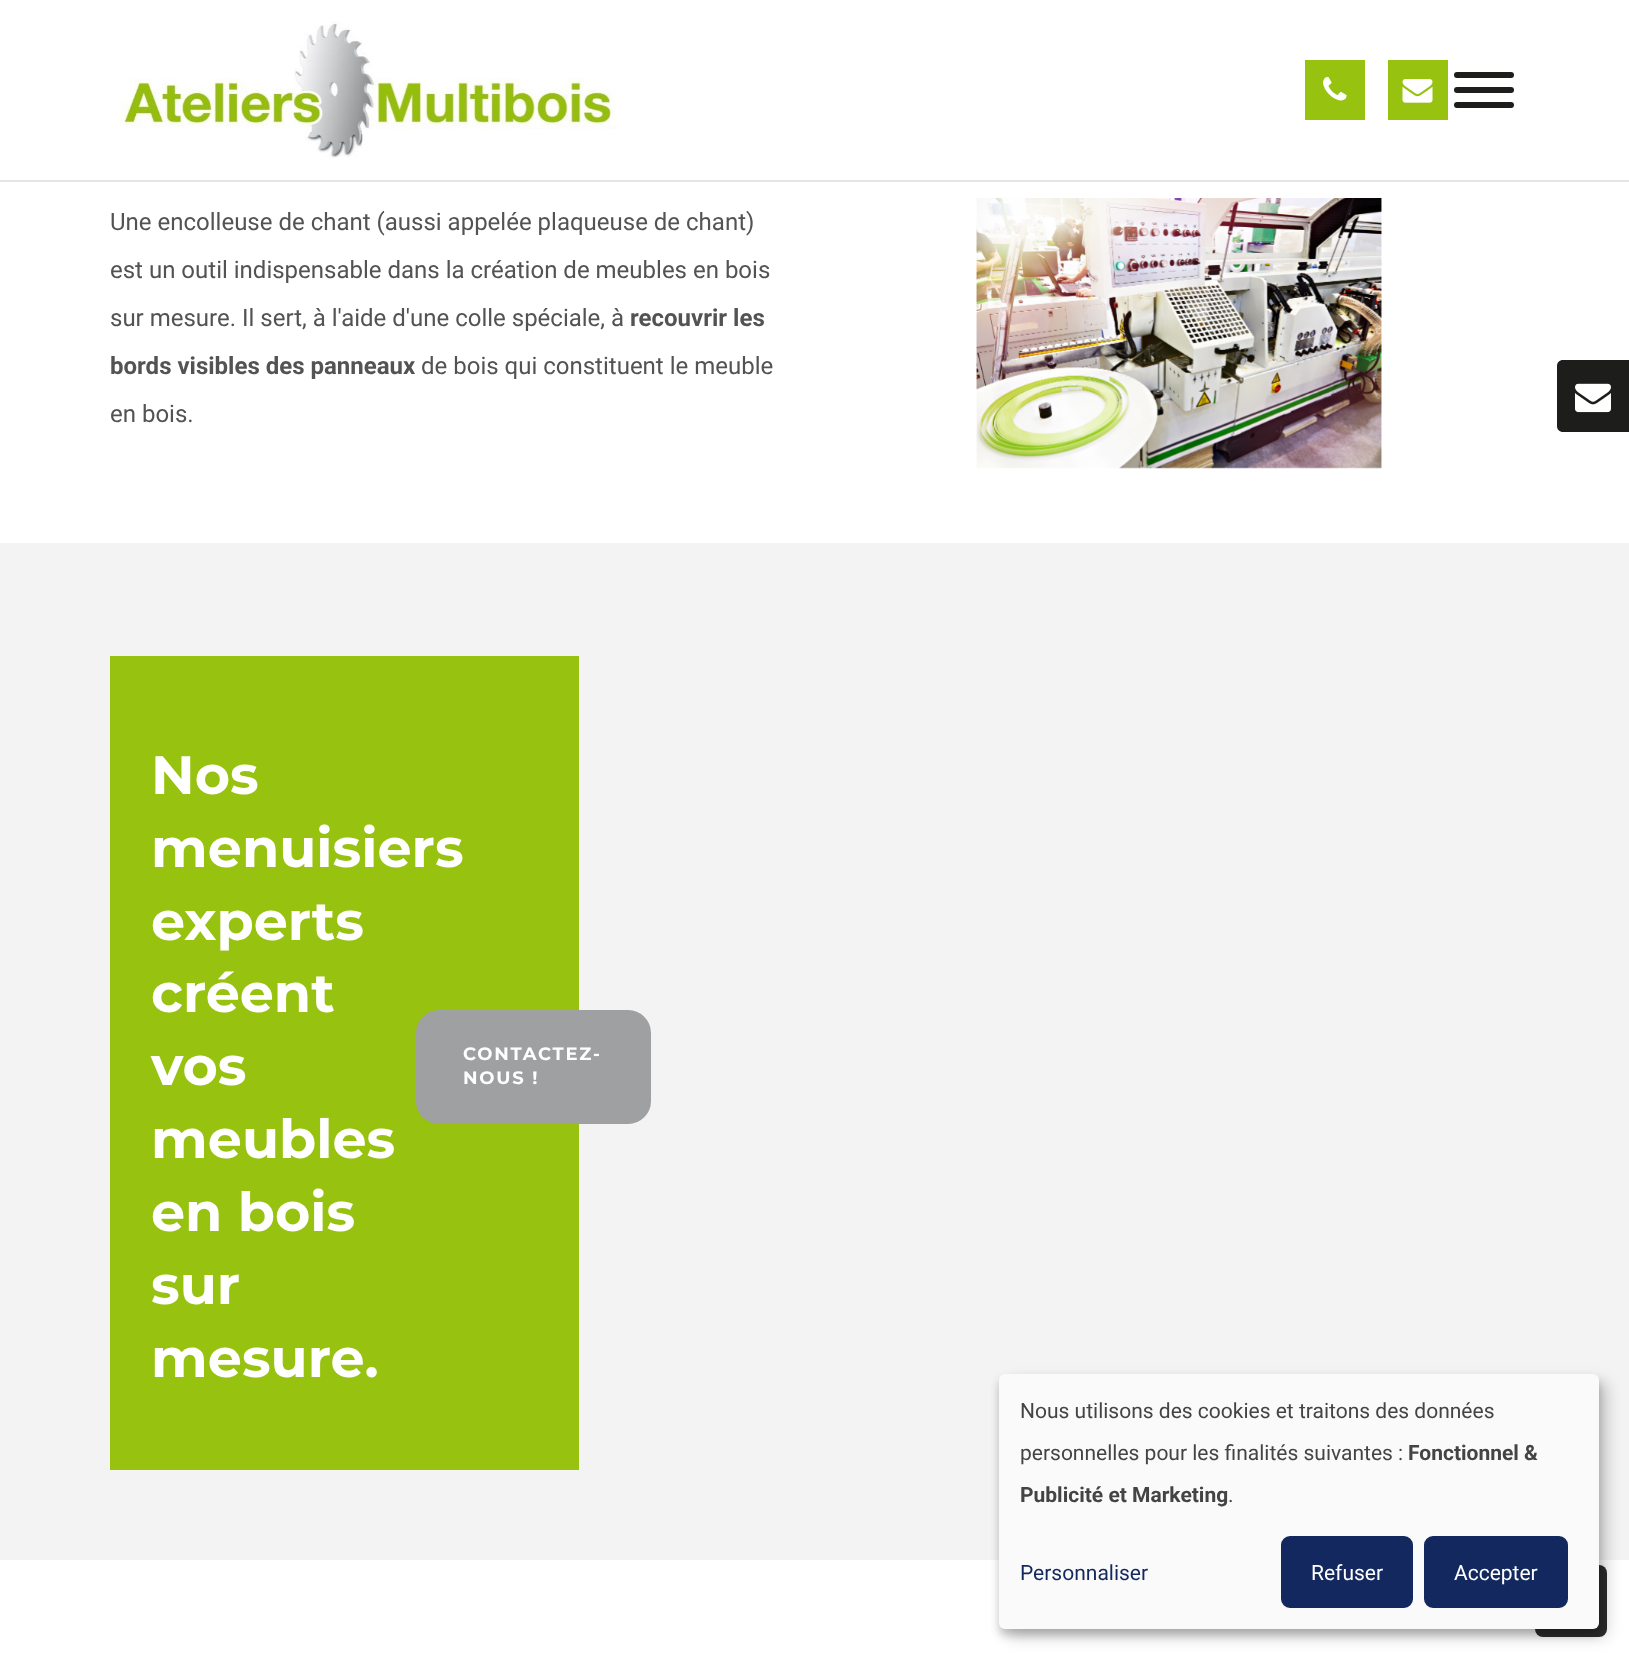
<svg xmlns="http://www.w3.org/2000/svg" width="1629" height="1658">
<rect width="100%" height="100%" fill="#fff"/>
<rect y="180" width="1629" height="2" fill="#e5e5e5"/>
<image x="120" y="21" width="497" height="137" href="media/1.png"/>
<rect x="1305" y="60" width="60" height="60" fill="#97c210"/>
<image x="1323" y="77" width="24" height="24" href="media/2.png"/>
<rect x="1388" y="60" width="60" height="60" fill="#97c210"/>
<image x="1402" y="79" width="31" height="24" href="media/3.png"/>
<rect x="1454" y="72" width="60" height="6" rx="3" fill="#1d1d1b"/>
<rect x="1454" y="87" width="60" height="6" rx="3" fill="#1d1d1b"/>
<rect x="1454" y="102" width="60" height="6" rx="3" fill="#1d1d1b"/>
<text x="110" y="230" style="font-family:Roboto;font-size:24px;fill:#535353">Une encolleuse de chant (aussi appelée plaqueuse de chant)</text>
<text x="110" y="278" style="font-family:Roboto;font-size:24px;fill:#535353">est un outil indispensable dans la création de meubles en bois</text>
<text x="110" y="326" style="font-family:Roboto;font-size:24px;fill:#535353">sur mesure. Il sert, à l'aide d'une colle spéciale, à</text>
<text x="630" y="326" style="font-family:Roboto;font-size:24px;font-weight:bold;fill:#535353">recouvrir les</text>
<text x="110" y="374" style="font-family:Roboto;font-size:24px;font-weight:bold;fill:#535353">bords visibles des panneaux</text>
<text x="421" y="374" style="font-family:Roboto;font-size:24px;fill:#535353">de bois qui constituent le meuble</text>
<text x="110" y="422" style="font-family:Roboto;font-size:24px;fill:#535353">en bois.</text>
<image x="976" y="198" width="406" height="271" href="media/4.png"/>
<rect y="543" width="1629" height="1017" fill="#f3f3f3"/>
<rect x="110" y="656" width="469" height="814" fill="#97c210"/>
<text x="151" y="794" style="font-family:Montserrat;font-size:54px;font-weight:bold;fill:#fff">Nos</text>
<text x="151" y="867" style="font-family:Montserrat;font-size:54px;font-weight:bold;fill:#fff">menuisiers</text>
<text x="151" y="940" style="font-family:Montserrat;font-size:54px;font-weight:bold;fill:#fff">experts</text>
<text x="151" y="1012" style="font-family:Montserrat;font-size:54px;font-weight:bold;fill:#fff">créent</text>
<text x="151" y="1085" style="font-family:Montserrat;font-size:54px;font-weight:bold;fill:#fff">vos</text>
<text x="151" y="1158" style="font-family:Montserrat;font-size:54px;font-weight:bold;fill:#fff">meubles</text>
<text x="151" y="1231" style="font-family:Montserrat;font-size:54px;font-weight:bold;fill:#fff">en bois</text>
<text x="151" y="1304" style="font-family:Montserrat;font-size:54px;font-weight:bold;fill:#fff">sur</text>
<text x="151" y="1377" style="font-family:Montserrat;font-size:54px;font-weight:bold;fill:#fff">mesure.</text>
<rect x="417.5" y="1011.5" width="232" height="111" rx="21.5" fill="#9fa0a2" stroke="#9fa0a2" stroke-width="3"/>
<text x="463" y="1060" style="font-family:Montserrat;font-size:18px;font-weight:bold;letter-spacing:1.75px;fill:#fff">CONTACTEZ-</text>
<text x="463" y="1084" style="font-family:Montserrat;font-size:18px;font-weight:bold;letter-spacing:1.75px;fill:#fff">NOUS !</text>
<path d="M1563 360h66v72h-66c-3.5 0-6-2.5-6-6v-60c0-3.5 2.5-6 6-6z" fill="#1d1d1b"/>
<image x="1575" y="383" width="36" height="30" href="media/5.png"/>
<rect x="1535" y="1565" width="72" height="72" rx="8" fill="#2d2d2d"/>
<rect x="1007" y="1382" width="600" height="255" rx="6" fill="#00000030" filter="blur(7.5px)"/>
<rect x="999" y="1380" width="600" height="255" rx="6" fill="#00000033" filter="blur(4.5px)"/>
<rect x="999" y="1374" width="600" height="255" rx="6" fill="#fafafa"/>
<text x="1020" y="1418" style="font-family:Roboto;font-size:21px;fill:#444">Nous utilisons des cookies et traitons des données</text>
<text x="1020" y="1460" style="font-family:Roboto;font-size:21px;fill:#444">personnelles pour les finalités suivantes :</text>
<text x="1408" y="1460" style="font-family:Roboto;font-size:21px;font-weight:bold;fill:#444">Fonctionnel &amp;</text>
<text x="1020" y="1502" style="font-family:Roboto;font-size:21px;font-weight:bold;fill:#444">Publicité et Marketing</text>
<text x="1228" y="1502" style="font-family:Roboto;font-size:21px;fill:#444">.</text>
<text x="1020" y="1580" style="font-family:Roboto;font-size:21px;fill:#12285f">Personnaliser</text>
<rect x="1283.5" y="1538.5" width="127" height="67" rx="6.5" fill="#12285f" stroke="#12285f" stroke-width="5"/>
<text x="1311" y="1580" style="font-family:Roboto;font-size:21px;fill:#fff">Refuser</text>
<rect x="1426.5" y="1538.5" width="139" height="67" rx="6.5" fill="#12285f" stroke="#12285f" stroke-width="5"/>
<text x="1454" y="1580" style="font-family:Roboto;font-size:21px;fill:#fff">Accepter</text>
</svg>
